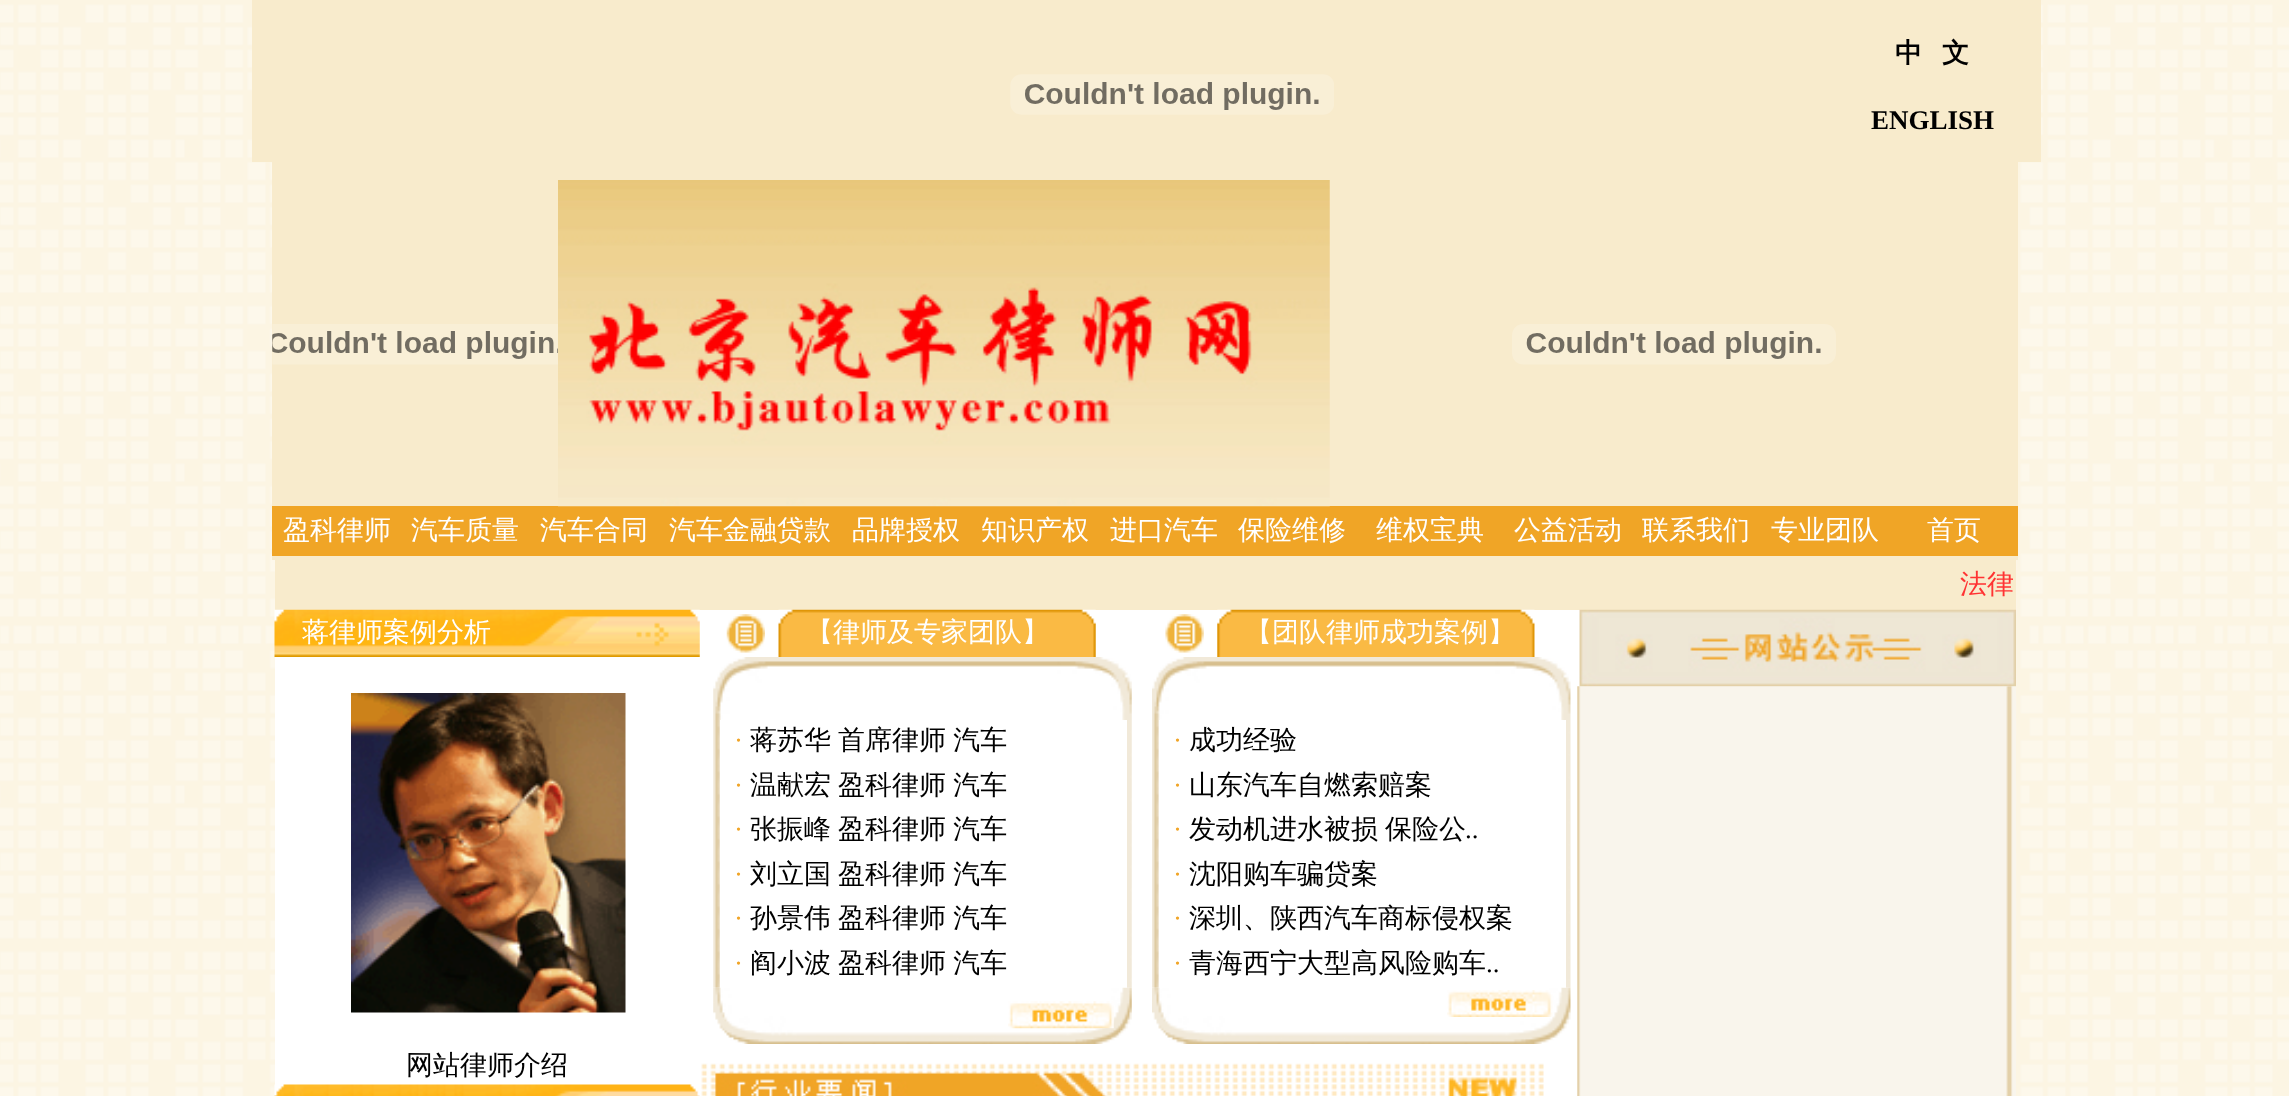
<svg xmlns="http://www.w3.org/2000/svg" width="2289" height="1096">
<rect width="100%" height="100%" fill="#fff"/>
<image x="0" y="0" width="2289" height="1096" href="media/1.png"/>
<rect x="252" width="20" height="162" fill="#f8ebcc"/>
<rect x="272" width="1746" height="560" fill="#f8ebcc"/>
<image x="1010" y="74" width="324" height="41" href="media/2.png"/>
<text x="1895" y="62" style="font-family:WenQuanYi Zen Hei;font-size:27px;font-weight:bold;fill:#000">中</text>
<text x="1942" y="62" style="font-family:WenQuanYi Zen Hei;font-size:27px;font-weight:bold;fill:#000">文</text>
<text x="1871" y="129" style="font-family:Liberation Serif;font-size:27px;font-weight:bold;fill:#000">ENGLISH</text>
<image x="272" y="324" width="286" height="41" href="media/3.png"/>
<rect x="272" y="506" width="1746" height="50" fill="#f0a526"/>
<image x="558" y="180" width="772" height="327" href="media/4.png"/>
<image x="1512" y="324" width="324" height="41" href="media/5.png"/>
<text x="283" y="539" style="font-family:WenQuanYi Zen Hei;font-size:27px;font-weight:500;fill:#fff">盈科律师</text>
<text x="411" y="539" style="font-family:WenQuanYi Zen Hei;font-size:27px;font-weight:500;fill:#fff">汽车质量</text>
<text x="540" y="539" style="font-family:WenQuanYi Zen Hei;font-size:27px;font-weight:500;fill:#fff">汽车合同</text>
<text x="669" y="539" style="font-family:WenQuanYi Zen Hei;font-size:27px;font-weight:500;fill:#fff">汽车金融贷款</text>
<text x="852" y="539" style="font-family:WenQuanYi Zen Hei;font-size:27px;font-weight:500;fill:#fff">品牌授权</text>
<text x="981" y="539" style="font-family:WenQuanYi Zen Hei;font-size:27px;font-weight:500;fill:#fff">知识产权</text>
<text x="1110" y="539" style="font-family:WenQuanYi Zen Hei;font-size:27px;font-weight:500;fill:#fff">进口汽车</text>
<text x="1238" y="539" style="font-family:WenQuanYi Zen Hei;font-size:27px;font-weight:500;fill:#fff">保险维修</text>
<text x="1376" y="539" style="font-family:WenQuanYi Zen Hei;font-size:27px;font-weight:500;fill:#fff">维权宝典</text>
<text x="1514" y="539" style="font-family:WenQuanYi Zen Hei;font-size:27px;font-weight:500;fill:#fff">公益活动</text>
<text x="1642" y="539" style="font-family:WenQuanYi Zen Hei;font-size:27px;font-weight:500;fill:#fff">联系我们</text>
<text x="1771" y="539" style="font-family:WenQuanYi Zen Hei;font-size:27px;font-weight:500;fill:#fff">专业团队</text>
<text x="1927" y="539" style="font-family:WenQuanYi Zen Hei;font-size:27px;font-weight:500;fill:#fff">首页</text>
<rect x="2018" width="23" height="162" fill="#f8ebcc"/>
<rect x="275" y="610" width="1741" height="486" fill="#fff"/>
<rect x="275" y="560" width="1741" height="50" fill="#f8ebcc"/>
<text x="1960" y="593" style="font-family:WenQuanYi Zen Hei;font-size:27px;font-weight:500;fill:#f33">法律</text>
<image x="274" y="609" width="426" height="48" href="media/6.png"/>
<text x="302" y="641" style="font-family:WenQuanYi Zen Hei;font-size:27px;font-weight:500;fill:#fff">蒋律师案例分析</text>
<image x="351" y="693" width="275" height="320" href="media/7.png"/>
<text x="406" y="1074" style="font-family:WenQuanYi Zen Hei;font-size:27px;font-weight:500;fill:#000">网站律师介绍</text>
<image x="274" y="1084" width="426" height="12" href="media/8.png"/>
<image x="726" y="614" width="39" height="39" href="media/9.png"/>
<image x="778" y="609" width="318" height="48" href="media/10.png"/>
<text x="806" y="641" style="font-family:WenQuanYi Zen Hei;font-size:27px;font-weight:500;fill:#fff">【律师及专家团队】</text>
<image x="713" y="657" width="419" height="63" href="media/11.png"/>
<image x="713" y="720" width="419" height="268" href="media/12.png"/>
<rect x="720" y="720" width="407" height="268" fill="#fff"/>
<text x="734" y="749" style="font-family:Liberation Serif;font-size:27px;fill:#f1a527">·</text>
<text x="750" y="749" word-spacing="-1" style="font-family:WenQuanYi Zen Hei;font-size:27px;font-weight:500;fill:#000">蒋苏华 首席律师 汽车</text>
<text x="734" y="794" style="font-family:Liberation Serif;font-size:27px;fill:#f1a527">·</text>
<text x="750" y="794" word-spacing="-1" style="font-family:WenQuanYi Zen Hei;font-size:27px;font-weight:500;fill:#000">温献宏 盈科律师 汽车</text>
<text x="734" y="838" style="font-family:Liberation Serif;font-size:27px;fill:#f1a527">·</text>
<text x="750" y="838" word-spacing="-1" style="font-family:WenQuanYi Zen Hei;font-size:27px;font-weight:500;fill:#000">张振峰 盈科律师 汽车</text>
<text x="734" y="883" style="font-family:Liberation Serif;font-size:27px;fill:#f1a527">·</text>
<text x="750" y="883" word-spacing="-1" style="font-family:WenQuanYi Zen Hei;font-size:27px;font-weight:500;fill:#000">刘立国 盈科律师 汽车</text>
<text x="734" y="927" style="font-family:Liberation Serif;font-size:27px;fill:#f1a527">·</text>
<text x="750" y="927" word-spacing="-1" style="font-family:WenQuanYi Zen Hei;font-size:27px;font-weight:500;fill:#000">孙景伟 盈科律师 汽车</text>
<text x="734" y="972" style="font-family:Liberation Serif;font-size:27px;fill:#f1a527">·</text>
<text x="750" y="972" word-spacing="-1" style="font-family:WenQuanYi Zen Hei;font-size:27px;font-weight:500;fill:#000">阎小波 盈科律师 汽车</text>
<image x="713" y="987" width="419" height="57" href="media/13.png"/>
<image x="1008" y="1001" width="106" height="28" href="media/14.png"/>
<image x="1165" y="614" width="39" height="39" href="media/15.png"/>
<image x="1217" y="609" width="318" height="48" href="media/16.png"/>
<text x="1245" y="641" style="font-family:WenQuanYi Zen Hei;font-size:27px;font-weight:500;fill:#fff">【团队律师成功案例】</text>
<image x="1152" y="657" width="419" height="63" href="media/17.png"/>
<image x="1152" y="720" width="419" height="268" href="media/18.png"/>
<rect x="1159" y="720" width="407" height="268" fill="#fff"/>
<text x="1173" y="749" style="font-family:Liberation Serif;font-size:27px;fill:#f1a527">·</text>
<text x="1189" y="749" style="font-family:WenQuanYi Zen Hei;font-size:27px;font-weight:500;fill:#000">成功经验</text>
<text x="1173" y="794" style="font-family:Liberation Serif;font-size:27px;fill:#f1a527">·</text>
<text x="1189" y="794" style="font-family:WenQuanYi Zen Hei;font-size:27px;font-weight:500;fill:#000">山东汽车自燃索赔案</text>
<text x="1173" y="838" style="font-family:Liberation Serif;font-size:27px;fill:#f1a527">·</text>
<text x="1189" y="838" word-spacing="-1" style="font-family:WenQuanYi Zen Hei;font-size:27px;font-weight:500;fill:#000">发动机进水被损 保险公</text>
<text x="1465" y="838" style="font-family:Liberation Serif;font-size:27px;fill:#000">..</text>
<text x="1173" y="883" style="font-family:Liberation Serif;font-size:27px;fill:#f1a527">·</text>
<text x="1189" y="883" style="font-family:WenQuanYi Zen Hei;font-size:27px;font-weight:500;fill:#000">沈阳购车骗贷案</text>
<text x="1173" y="927" style="font-family:Liberation Serif;font-size:27px;fill:#f1a527">·</text>
<text x="1189" y="927" style="font-family:WenQuanYi Zen Hei;font-size:27px;font-weight:500;fill:#000">深圳、陕西汽车商标侵权案</text>
<text x="1173" y="972" style="font-family:Liberation Serif;font-size:27px;fill:#f1a527">·</text>
<text x="1189" y="972" style="font-family:WenQuanYi Zen Hei;font-size:27px;font-weight:500;fill:#000">青海西宁大型高风险购车</text>
<text x="1486" y="972" style="font-family:Liberation Serif;font-size:27px;fill:#000">..</text>
<image x="1152" y="987" width="419" height="57" href="media/19.png"/>
<image x="1447" y="990" width="106" height="27" href="media/20.png"/>
<image x="699" y="1063" width="845" height="33" href="media/21.png"/>
<image x="1577" y="686" width="439" height="410" href="media/23.png"/>
<image x="1579" y="609" width="437" height="78" href="media/22.png"/>
</svg>
